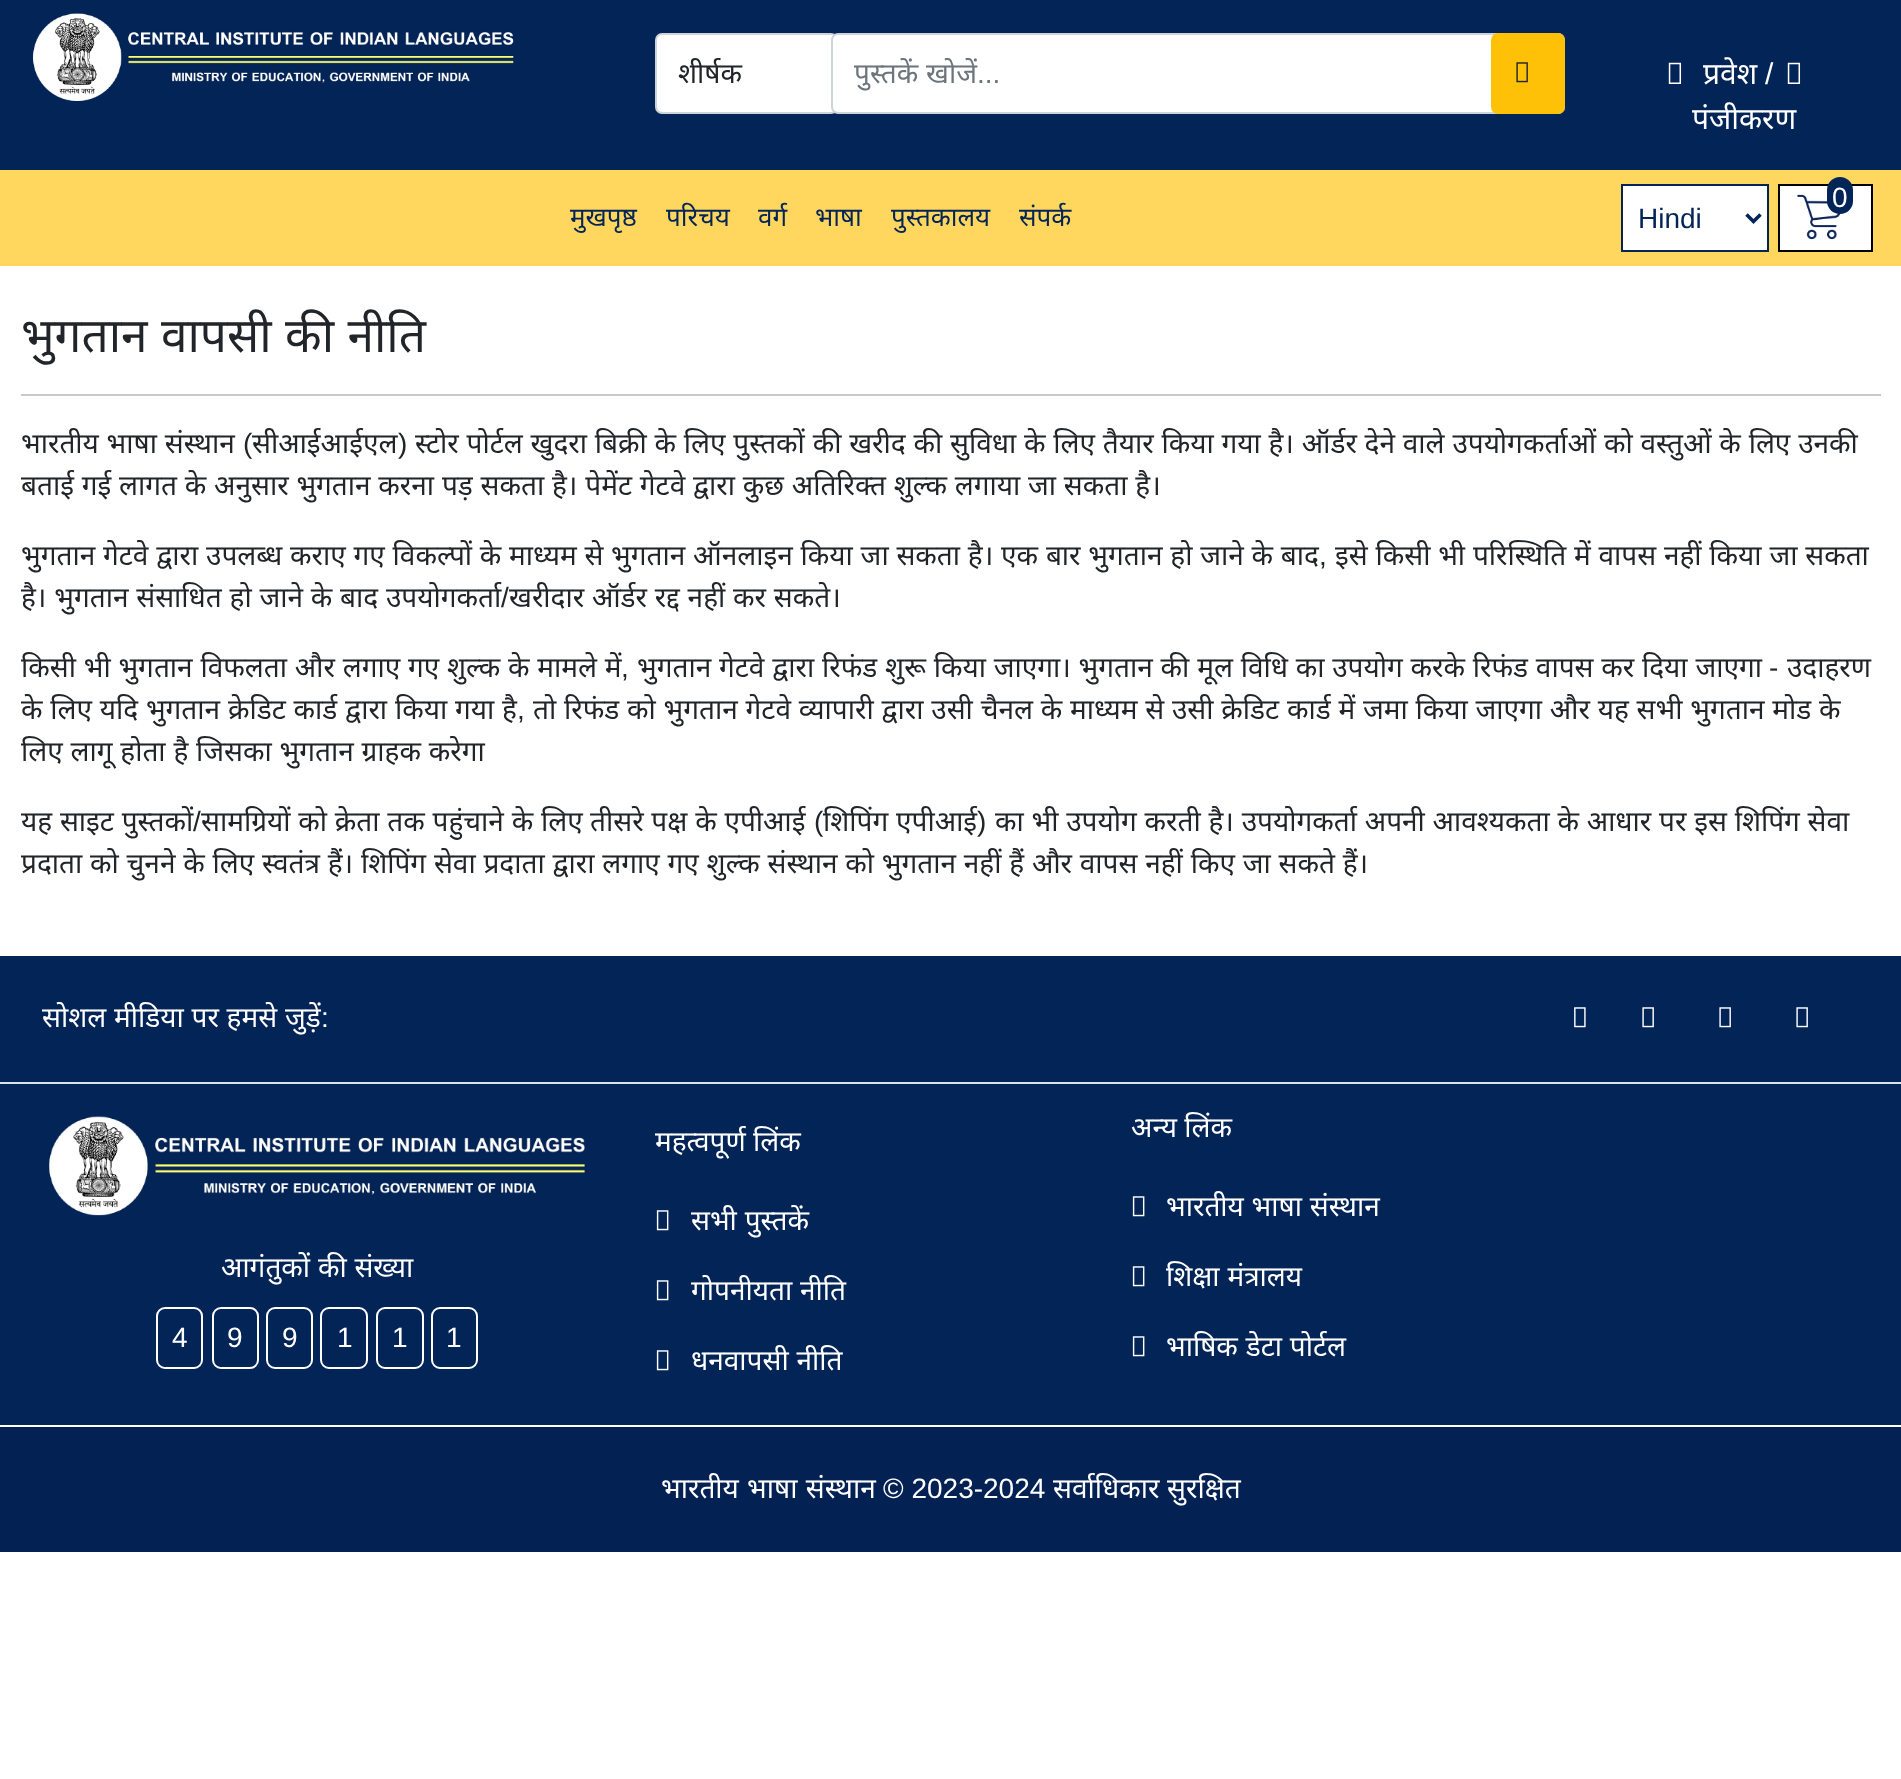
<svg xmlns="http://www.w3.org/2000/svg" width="1901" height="1779">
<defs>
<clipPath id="clip1"><rect x="677" y="53" width="139" height="42"/></clipPath>
<clipPath id="clip2"><rect x="854" y="53" width="662" height="38"/></clipPath>
</defs>
<rect width="100%" height="100%" fill="#fff"/>
<rect width="1901" height="170" fill="#032457"/>
<image x="33" y="13" width="481" height="89" href="media/1.png"/>
<rect x="656" y="34" width="181" height="79" rx="6" fill="#fff" stroke="#ced4da" stroke-width="2"/>
<g clip-path="url(#clip1)">
<text x="678" y="83" style="font-family:Noto Sans;font-size:28px;fill:#212529">शीर्षक</text>
</g>
<rect x="832" y="34" width="732" height="79" rx="6" fill="#fff" stroke="#ced4da" stroke-width="2"/>
<g clip-path="url(#clip2)">
<text x="854" y="83" word-spacing="0.5" style="font-family:Noto Sans;font-size:28px;fill:#6c757d">पुस्तकें खोजें</text>
</g>
<text x="977" y="83" style="font-family:Liberation Sans;font-size:28px;fill:#6c757d">...</text>
<rect x="1491" y="33" width="74" height="81" rx="7" fill="#ffc107"/>
<image x="1516" y="62" width="12" height="21" href="media/2.png"/>
<image x="1668" y="62" width="14" height="22" href="media/3.png"/>
<text x="1703" y="84" style="font-family:Noto Sans;font-size:30px;fill:#fff">प्रवेश</text>
<text x="1765" y="84" style="font-family:Liberation Sans;font-size:30px;fill:#fff">/</text>
<image x="1787" y="62" width="14" height="22" href="media/3.png"/>
<text x="1692" y="129" style="font-family:Noto Sans;font-size:30px;fill:#fff">पंजीकरण</text>
<rect y="170" width="1901" height="96" fill="#ffd75e"/>
<text x="570" y="226" style="font-family:Noto Sans;font-size:26px;fill:#032457">मुखपृष्ठ</text>
<text x="666" y="226" style="font-family:Noto Sans;font-size:26px;fill:#032457">परिचय</text>
<text x="758" y="226" style="font-family:Noto Sans;font-size:26px;fill:#032457">वर्ग</text>
<text x="815" y="226" style="font-family:Noto Sans;font-size:26px;fill:#032457">भाषा</text>
<text x="891" y="226" style="font-family:Noto Sans;font-size:26px;fill:#032457">पुस्तकालय</text>
<text x="1019" y="226" style="font-family:Noto Sans;font-size:26px;fill:#032457">संपर्क</text>
<rect x="1779" y="185" width="93" height="66" fill="#fff" stroke="#000" stroke-width="2"/>
<image x="1797" y="194" width="44" height="46" href="media/4.png"/>
<rect x="1827" y="177" width="26" height="37" rx="13" fill="#032457"/>
<text x="1832" y="207" style="font-family:Liberation Sans;font-size:28px;fill:#fff">0</text>
<rect x="1622" y="185" width="146" height="66" fill="#fff" stroke="#032457" stroke-width="2"/>
<path d="M1746.5 214.5l7 7l7-7" fill="none" stroke="#032457" stroke-width="3.5"/>
<text x="1638" y="228" style="font-family:Liberation Sans;font-size:28px;fill:#032457">Hindi</text>
<text x="21" y="352" word-spacing="1" style="font-family:Noto Sans;font-size:47.75px;fill:#212529">भुगतान वापसी की नीति</text>
<rect x="21" y="394" width="1860" height="2" fill="#c8c9ca"/>
<text x="21" y="453" word-spacing="0.5" style="font-family:Noto Sans;font-size:28px;fill:#212529">भारतीय भाषा संस्थान</text>
<text x="243" y="453" style="font-family:Liberation Sans;font-size:28px;fill:#212529">(</text>
<text x="252" y="453" style="font-family:Noto Sans;font-size:28px;fill:#212529">सीआईआईएल</text>
<text x="415" y="453" word-spacing="0.5" style="font-family:Noto Sans;font-size:28px;fill:#212529">स्टोर पोर्टल खुदरा बिक्री के लिए पुस्तकों की खरीद की सुविधा के लिए तैयार किया गया है। ऑर्डर देने वाले उपयोगकर्ताओं को वस्तुओं के लिए उनकी</text>
<text x="398" y="453" style="font-family:Liberation Sans;font-size:28px;fill:#212529">)</text>
<text x="21" y="495" word-spacing="0.5" style="font-family:Noto Sans;font-size:28px;fill:#212529">बताई गई लागत के अनुसार भुगतान करना पड़ सकता है। पेमेंट गेटवे द्वारा कुछ अतिरिक्त शुल्क लगाया जा सकता है।</text>
<text x="21" y="565" word-spacing="0.5" style="font-family:Noto Sans;font-size:28px;fill:#212529">भुगतान गेटवे द्वारा उपलब्ध कराए गए विकल्पों के माध्यम से भुगतान ऑनलाइन किया जा सकता है। एक बार भुगतान हो जाने के बाद</text>
<text x="1319" y="565" style="font-family:Liberation Sans;font-size:28px;fill:#212529">,</text>
<text x="1335" y="565" word-spacing="0.5" style="font-family:Noto Sans;font-size:28px;fill:#212529">इसे किसी भी परिस्थिति में वापस नहीं किया जा सकता</text>
<text x="21" y="607" word-spacing="0.5" style="font-family:Noto Sans;font-size:28px;fill:#212529">है। भुगतान संसाधित हो जाने के बाद उपयोगकर्ता</text>
<text x="501" y="607" style="font-family:Liberation Sans;font-size:28px;fill:#212529">/</text>
<text x="509" y="607" word-spacing="0.5" style="font-family:Noto Sans;font-size:28px;fill:#212529">खरीदार ऑर्डर रद्द नहीं कर सकते।</text>
<text x="21" y="677" word-spacing="0.5" style="font-family:Noto Sans;font-size:28px;fill:#212529">किसी भी भुगतान विफलता और लगाए गए शुल्क के मामले में</text>
<text x="621" y="677" style="font-family:Liberation Sans;font-size:28px;fill:#212529">,</text>
<text x="637" y="677" word-spacing="0.5" style="font-family:Noto Sans;font-size:28px;fill:#212529">भुगतान गेटवे द्वारा रिफंड शुरू किया जाएगा। भुगतान की मूल विधि का उपयोग करके रिफंड वापस कर दिया जाएगा</text>
<text x="1769" y="677" style="font-family:Liberation Sans;font-size:28px;fill:#212529">-</text>
<text x="1787" y="677" style="font-family:Noto Sans;font-size:28px;fill:#212529">उदाहरण</text>
<text x="21" y="719" word-spacing="0.5" style="font-family:Noto Sans;font-size:28px;fill:#212529">के लिए यदि भुगतान क्रेडिट कार्ड द्वारा किया गया है</text>
<text x="517" y="719" style="font-family:Liberation Sans;font-size:28px;fill:#212529">,</text>
<text x="533" y="719" word-spacing="0.5" style="font-family:Noto Sans;font-size:28px;fill:#212529">तो रिफंड को भुगतान गेटवे व्यापारी द्वारा उसी चैनल के माध्यम से उसी क्रेडिट कार्ड में जमा किया जाएगा और यह सभी भुगतान मोड के</text>
<text x="21" y="761" word-spacing="0.5" style="font-family:Noto Sans;font-size:28px;fill:#212529">लिए लागू होता है जिसका भुगतान ग्राहक करेगा</text>
<text x="21" y="831" word-spacing="0.5" style="font-family:Noto Sans;font-size:28px;fill:#212529">यह साइट पुस्तकों</text>
<text x="193" y="831" style="font-family:Liberation Sans;font-size:28px;fill:#212529">/</text>
<text x="201" y="831" word-spacing="0.5" style="font-family:Noto Sans;font-size:28px;fill:#212529">सामग्रियों को क्रेता तक पहुंचाने के लिए</text>
<text x="590" y="831" word-spacing="0.5" style="font-family:Noto Sans;font-size:28px;fill:#212529">तीसरे पक्ष के एपीआई</text>
<text x="814" y="831" style="font-family:Liberation Sans;font-size:28px;fill:#212529">(</text>
<text x="823" y="831" word-spacing="0.5" style="font-family:Noto Sans;font-size:28px;fill:#212529">शिपिंग एपीआई</text>
<text x="977" y="831" style="font-family:Liberation Sans;font-size:28px;fill:#212529">)</text>
<text x="995" y="831" word-spacing="0.5" style="font-family:Noto Sans;font-size:28px;fill:#212529">का भी उपयोग करती है। उपयोगकर्ता अपनी आवश्यकता के आधार पर इस शिपिंग सेवा</text>
<text x="21" y="873" word-spacing="0.5" style="font-family:Noto Sans;font-size:28px;fill:#212529">प्रदाता को चुनने के लिए स्वतंत्र हैं। शिपिंग सेवा प्रदाता द्वारा लगाए गए शुल्क संस्थान को भुगतान नहीं हैं और वापस नहीं किए जा सकते हैं।</text>
<rect y="956" width="1901" height="469" fill="#032457"/>
<rect y="1082" width="1901" height="2" fill="#dee2e6"/>
<text x="42" y="1027" word-spacing="0.5" style="font-family:Noto Sans;font-size:28px;fill:#fff">सोशल मीडिया पर हमसे जुड़ें</text>
<text x="321" y="1027" style="font-family:Liberation Sans;font-size:28px;fill:#fff">:</text>
<image x="1574" y="1007" width="12" height="21" href="media/5.png"/>
<image x="1642" y="1007" width="12" height="21" href="media/6.png"/>
<image x="1719" y="1007" width="12" height="21" href="media/6.png"/>
<image x="1796" y="1007" width="12" height="21" href="media/6.png"/>
<image x="49" y="1116" width="536" height="100" href="media/7.png"/>
<text x="221" y="1277" word-spacing="0.5" style="font-family:Noto Sans;font-size:28px;fill:#fff">आगंतुकों की संख्या</text>
<rect x="157" y="1308" width="45" height="60" rx="8" fill="none" stroke="#fff" stroke-width="2"/>
<text x="172" y="1347" style="font-family:Liberation Sans;font-size:28px;fill:#fff">4</text>
<rect x="213" y="1308" width="45" height="60" rx="8" fill="none" stroke="#fff" stroke-width="2"/>
<text x="227" y="1347" style="font-family:Liberation Sans;font-size:28px;fill:#fff">9</text>
<rect x="267" y="1308" width="45" height="60" rx="8" fill="none" stroke="#fff" stroke-width="2"/>
<text x="282" y="1347" style="font-family:Liberation Sans;font-size:28px;fill:#fff">9</text>
<rect x="321" y="1308" width="46" height="60" rx="8" fill="none" stroke="#fff" stroke-width="2"/>
<text x="337" y="1347" style="font-family:Liberation Sans;font-size:28px;fill:#fff">1</text>
<rect x="377" y="1308" width="46" height="60" rx="8" fill="none" stroke="#fff" stroke-width="2"/>
<text x="392" y="1347" style="font-family:Liberation Sans;font-size:28px;fill:#fff">1</text>
<rect x="432" y="1308" width="45" height="60" rx="8" fill="none" stroke="#fff" stroke-width="2"/>
<text x="446" y="1347" style="font-family:Liberation Sans;font-size:28px;fill:#fff">1</text>
<text x="655" y="1151" style="font-family:Noto Sans;font-size:28px;fill:#fff">महत्वपूर्ण लिंक</text>
<image x="656" y="1210" width="13" height="21" href="media/8.png"/>
<text x="691" y="1230" word-spacing="0.5" style="font-family:Noto Sans;font-size:28px;fill:#fff">सभी पुस्तकें</text>
<image x="656" y="1280" width="13" height="21" href="media/8.png"/>
<text x="691" y="1300" word-spacing="0.5" style="font-family:Noto Sans;font-size:28px;fill:#fff">गोपनीयता नीति</text>
<image x="656" y="1350" width="13" height="21" href="media/8.png"/>
<text x="691" y="1370" word-spacing="0.5" style="font-family:Noto Sans;font-size:28px;fill:#fff">धनवापसी नीति</text>
<text x="1131" y="1137" style="font-family:Noto Sans;font-size:28px;fill:#fff">अन्य लिंक</text>
<image x="1132" y="1196" width="13" height="21" href="media/8.png"/>
<text x="1166" y="1216" word-spacing="0.5" style="font-family:Noto Sans;font-size:28px;fill:#fff">भारतीय भाषा संस्थान</text>
<image x="1132" y="1266" width="13" height="21" href="media/8.png"/>
<text x="1166" y="1286" word-spacing="0.5" style="font-family:Noto Sans;font-size:28px;fill:#fff">शिक्षा मंत्रालय</text>
<image x="1132" y="1336" width="13" height="21" href="media/8.png"/>
<text x="1166" y="1356" word-spacing="0.5" style="font-family:Noto Sans;font-size:28px;fill:#fff">भाषिक डेटा पोर्टल</text>
<rect y="1427" width="1901" height="125" fill="#032253"/>
<text x="661" y="1498" word-spacing="1" style="font-family:Noto Sans;font-size:28px;fill:#fff">भारतीय भाषा संस्थान</text>
<text x="883" y="1498" style="font-family:Liberation Sans;font-size:28px;fill:#fff">© 2023-2024</text>
<text x="1053" y="1498" style="font-family:Noto Sans;font-size:28px;fill:#fff">सर्वाधिकार</text>
<text x="1167" y="1498" style="font-family:Noto Sans;font-size:28px;fill:#fff">सुरक्षित</text>
</svg>
